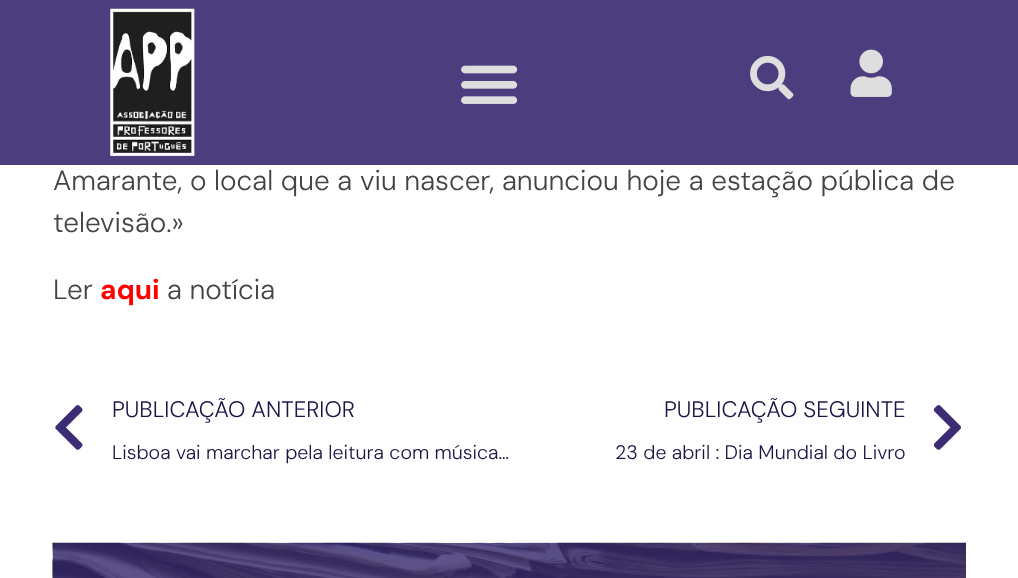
<svg xmlns="http://www.w3.org/2000/svg" width="1018" height="578">
<rect width="100%" height="100%" fill="#fff"/>
<rect width="1018" height="165" fill="#4b3d7e"/>
<image x="110" y="8" width="85" height="148" href="media/1.png"/>
<image x="461" y="65" width="57" height="39" href="media/2.png"/>
<image x="750" y="55" width="44" height="45" href="media/3.png"/>
<image x="850" y="49" width="42" height="48" href="media/4.png"/>
<text x="53" y="190" style="font-family:DM Sans;font-size:28px;font-weight:300;fill:#444">Amarante, o local que a viu nascer, anunciou hoje a estação pública de</text>
<text x="53" y="232" style="font-family:DM Sans;font-size:28px;font-weight:300;fill:#444">televisão.»</text>
<text x="53" y="299" style="font-family:DM Sans;font-size:28px;font-weight:300;fill:#444">Ler</text>
<text x="100" y="299" style="font-family:DM Sans;font-size:28px;font-weight:bold;fill:#f00">aqui</text>
<text x="167" y="299" style="font-family:DM Sans;font-size:28px;font-weight:300;fill:#444">a notícia</text>
<image x="55" y="405" width="28" height="45" href="media/5.png"/>
<text x="112" y="417" style="font-family:DM Sans;font-size:22.4px;font-weight:300;fill:#1e1445">PUBLICAÇÃO ANTERIOR</text>
<text x="112" y="459" style="font-family:DM Sans;font-size:19.6px;font-weight:300;fill:#1e1445">Lisboa vai marchar pela leitura com música…</text>
<text x="664" y="417" style="font-family:DM Sans;font-size:22.4px;font-weight:300;fill:#1e1445">PUBLICAÇÃO SEGUINTE</text>
<text x="615" y="459" style="font-family:DM Sans;font-size:19.6px;font-weight:300;fill:#1e1445">23 de abril : Dia Mundial do Livro</text>
<image x="933" y="405" width="28" height="45" href="media/6.png"/>
<image x="52" y="542" width="914" height="36" href="media/7.png"/>
</svg>
